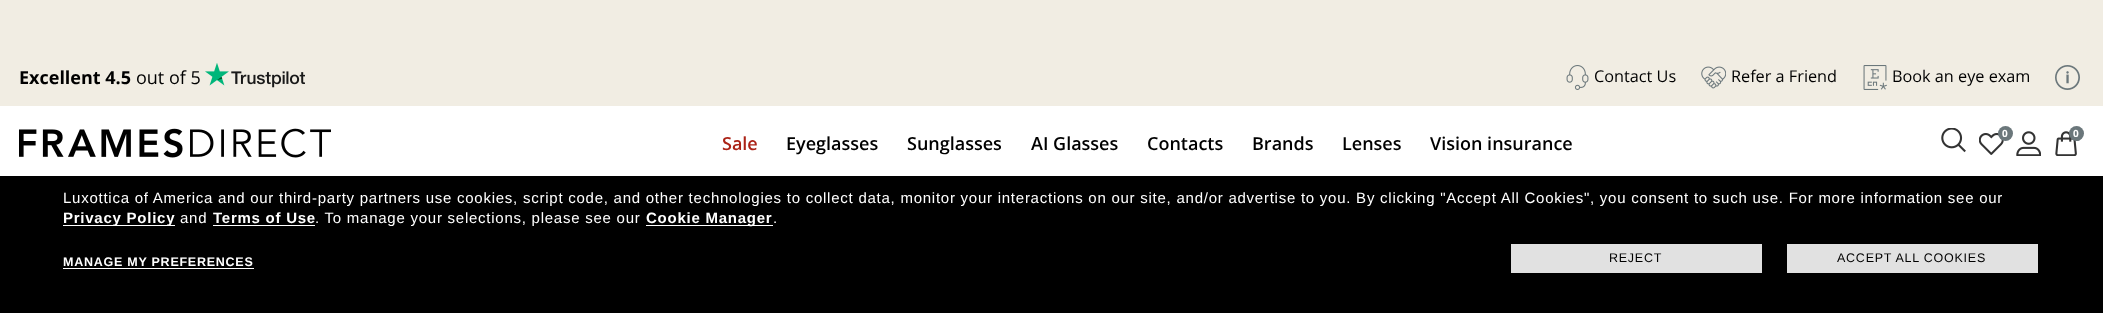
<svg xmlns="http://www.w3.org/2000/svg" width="2103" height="313">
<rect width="100%" height="100%" fill="#fff"/>
<rect width="2103" height="106" fill="#f1ede3"/>
<text x="19" y="84" style="font-family:Open Sans;font-size:18px;font-weight:bold;fill:#000">Excellent 4.5</text>
<text x="136" y="84" style="font-family:Open Sans;font-size:18px;fill:#000">out of 5</text>
<image x="205" y="63" width="100" height="25" href="media/1.png"/>
<image x="1566" y="65" width="23" height="25" href="media/2.png"/>
<text x="1594" y="82" style="font-family:Open Sans;font-size:16.25px;fill:#000">Contact Us</text>
<image x="1701" y="66" width="25" height="23" href="media/3.png"/>
<text x="1731" y="82" style="font-family:Open Sans;font-size:16.25px;fill:#000">Refer a Friend</text>
<image x="1863" y="65" width="24" height="25" href="media/4.png"/>
<text x="1892" y="82" style="font-family:Open Sans;font-size:16.25px;fill:#000">Book an eye exam</text>
<image x="2055" y="65" width="25" height="25" href="media/5.png"/>
<image x="19" y="128" width="312" height="30" href="media/6.png"/>
<image x="1941" y="128" width="25" height="25" href="media/7.png"/>
<image x="1979" y="133" width="25" height="22" href="media/8.png"/>
<circle cx="2005.5" cy="133.5" r="7.5" fill="#6b777b"/>
<text x="2002" y="137" style="font-family:Open Sans;font-size:10px;font-weight:bold;fill:#fff">0</text>
<image x="2016" y="131" width="25" height="25" href="media/9.png"/>
<image x="2055" y="131" width="22" height="25" href="media/10.png"/>
<circle cx="2076.5" cy="133.5" r="7.5" fill="#6b777b"/>
<text x="2073" y="137" style="font-family:Open Sans;font-size:10px;font-weight:bold;fill:#fff">0</text>
<text x="722" y="150" style="font-family:Open Sans;font-size:18px;font-weight:600;fill:#ab2317">Sale</text>
<text x="786" y="150" style="font-family:Open Sans;font-size:18px;font-weight:600;fill:#000">Eyeglasses</text>
<text x="907" y="150" style="font-family:Open Sans;font-size:18px;font-weight:600;fill:#000">Sunglasses</text>
<text x="1031" y="150" style="font-family:Open Sans;font-size:18px;font-weight:600;fill:#000">AI Glasses</text>
<text x="1147" y="150" style="font-family:Open Sans;font-size:18px;font-weight:600;fill:#000">Contacts</text>
<text x="1252" y="150" style="font-family:Open Sans;font-size:18px;font-weight:600;fill:#000">Brands</text>
<text x="1342" y="150" style="font-family:Open Sans;font-size:18px;font-weight:600;fill:#000">Lenses</text>
<text x="1430" y="150" style="font-family:Open Sans;font-size:18px;font-weight:600;fill:#000">Vision insurance</text>
<rect y="176" width="2103" height="137" fill="#000"/>
<text x="63" y="203" style="font-family:Liberation Sans;font-size:15px;letter-spacing:0.75px;fill:#fff">Luxottica of America and our third-party partners use cookies, script code, and other technologies to collect data, monitor your interactions on our site, and/or advertise to you. By clicking "Accept All Cookies", you consent to such use. For more information see our</text>
<rect x="63" y="225" width="112" height="1" fill="#fff"/>
<text x="63" y="223" style="font-family:Liberation Sans;font-size:15px;font-weight:bold;letter-spacing:0.75px;fill:#fff">Privacy Policy</text>
<text x="180" y="223" style="font-family:Liberation Sans;font-size:15px;letter-spacing:0.75px;fill:#fff">and</text>
<text x="213" y="223" style="font-family:Liberation Sans;font-size:15px;font-weight:bold;letter-spacing:0.75px;fill:#fff">Terms of Use</text>
<text x="315" y="223" style="font-family:Liberation Sans;font-size:15px;letter-spacing:0.75px;fill:#fff">. To manage your selections, please see our</text>
<rect x="213" y="225" width="102" height="1" fill="#fff"/>
<rect x="646" y="225" width="127" height="1" fill="#fff"/>
<text x="646" y="223" style="font-family:Liberation Sans;font-size:15px;font-weight:bold;letter-spacing:0.75px;fill:#fff">Cookie Manager</text>
<text x="773" y="223" style="font-family:Liberation Sans;font-size:15px;letter-spacing:0.75px;fill:#fff">.</text>
<text x="63" y="266" style="font-family:Liberation Sans;font-size:12.5px;font-weight:bold;letter-spacing:0.75px;fill:#fff">MANAGE MY PREFERENCES</text>
<rect x="63" y="268" width="191" height="1" fill="#fff"/>
<rect x="1511" y="244" width="251" height="29" fill="#e1e1e1"/>
<text x="1609" y="262" style="font-family:Liberation Sans;font-size:12.5px;letter-spacing:0.75px;fill:#000">REJECT</text>
<rect x="1787" y="244" width="251" height="29" fill="#e1e1e1"/>
<text x="1837" y="262" style="font-family:Liberation Sans;font-size:12.5px;letter-spacing:0.75px;fill:#000">ACCEPT ALL COOKIES</text>
</svg>
